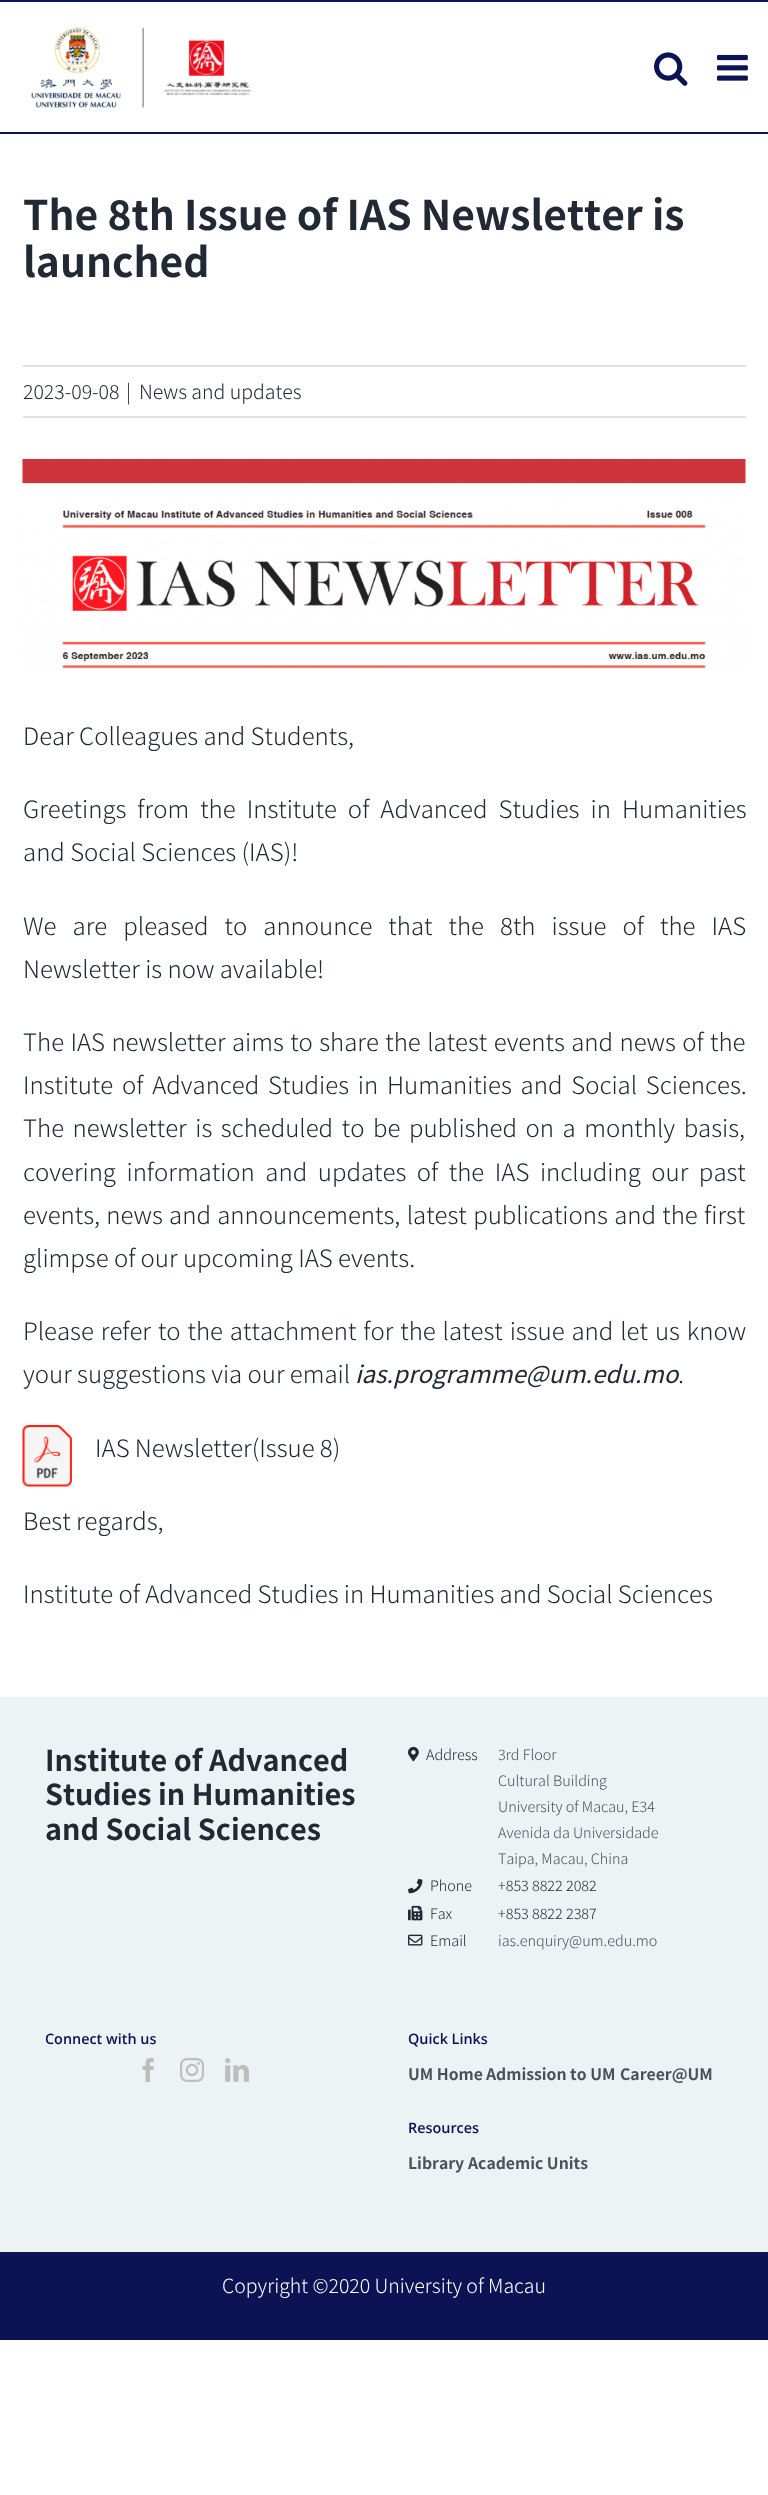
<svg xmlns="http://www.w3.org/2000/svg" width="768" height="2495">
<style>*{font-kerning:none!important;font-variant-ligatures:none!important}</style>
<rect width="100%" height="100%" fill="#fff"/>
<rect width="768" height="2" fill="#0b1354"/>
<rect y="132" width="768" height="2" fill="#0b1354"/>
<image x="31" y="27" width="221" height="81" href="media/1.png"/>
<image x="654" y="52" width="34" height="34" href="media/2.png"/>
<image x="717" y="54" width="31" height="27" href="media/3.png"/>
<text x="23" y="230" style="font-family:Noto Sans TC;font-size:40.75px;font-weight:bold;fill:#212934">The 8th Issue of IAS Newsletter is</text>
<text x="23" y="277" style="font-family:Noto Sans TC;font-size:40.75px;font-weight:bold;fill:#212934">launched</text>
<rect x="23" y="365" width="723" height="2" fill="#e2e2e2"/>
<rect x="23" y="416" width="723" height="2" fill="#e2e2e2"/>
<text x="23" y="399" style="font-family:Noto Sans TC;font-size:19.5px;font-weight:300;fill:#212934">2023-09-08</text>
<text x="126" y="399" style="font-family:Noto Sans TC;font-size:19.5px;font-weight:300;fill:#212934">|</text>
<text x="139" y="399" style="font-family:Noto Sans TC;font-size:19.5px;font-weight:300;fill:#212934">News and updates</text>
<image x="22" y="459" width="724" height="210" href="media/4.png"/>
<text x="23" y="745" style="font-family:Noto Sans TC;font-size:24px;font-weight:300;fill:#212934">Dear Colleagues and Students,</text>
<text x="23" y="818" word-spacing="5.75" style="font-family:Noto Sans TC;font-size:24px;font-weight:300;fill:#212934">Greetings from the Institute of Advanced Studies in Humanities</text>
<text x="23" y="861" style="font-family:Noto Sans TC;font-size:24px;font-weight:300;fill:#212934">and Social Sciences (IAS)!</text>
<text x="23" y="935" word-spacing="10.75" style="font-family:Noto Sans TC;font-size:24px;font-weight:300;fill:#212934">We are pleased to announce that the 8th issue of the IAS</text>
<text x="23" y="978" style="font-family:Noto Sans TC;font-size:24px;font-weight:300;fill:#212934">Newsletter is now available!</text>
<text x="23" y="1051" word-spacing="1.1" style="font-family:Noto Sans TC;font-size:24px;font-weight:300;fill:#212934">The IAS newsletter aims to share the latest events and news of the</text>
<text x="23" y="1094" word-spacing="3.5" style="font-family:Noto Sans TC;font-size:24px;font-weight:300;fill:#212934">Institute of Advanced Studies in Humanities and Social Sciences.</text>
<text x="23" y="1137" word-spacing="3.25" style="font-family:Noto Sans TC;font-size:24px;font-weight:300;fill:#212934">The newsletter is scheduled to be published on a monthly basis,</text>
<text x="23" y="1181" word-spacing="5.25" style="font-family:Noto Sans TC;font-size:24px;font-weight:300;fill:#212934">covering information and updates of the IAS including our past</text>
<text x="23" y="1224" word-spacing="1" style="font-family:Noto Sans TC;font-size:24px;font-weight:300;fill:#212934">events, news and announcements, latest publications and the first</text>
<text x="23" y="1267" style="font-family:Noto Sans TC;font-size:24px;font-weight:300;fill:#212934">glimpse of our upcoming IAS events.</text>
<text x="23" y="1340" word-spacing="1.6" style="font-family:Noto Sans TC;font-size:24px;font-weight:300;fill:#212934">Please refer to the attachment for the latest issue and let us know</text>
<text x="23" y="1383" style="font-family:Noto Sans TC;font-size:24px;font-weight:300;fill:#212934">your suggestions via our email</text>
<text x="355" y="1383" style="font-family:Noto Sans TC;font-size:24px;font-style:italic;fill:#212934">ias.programme@um.edu.mo</text>
<text x="678" y="1383" style="font-family:Noto Sans TC;font-size:24px;font-weight:300;fill:#212934">.</text>
<image x="22" y="1425" width="50" height="62" href="media/5.png"/>
<text x="95" y="1457" style="font-family:Noto Sans TC;font-size:24px;font-weight:300;fill:#212934">IAS Newsletter(Issue 8)</text>
<text x="23" y="1530" style="font-family:Noto Sans TC;font-size:24px;font-weight:300;fill:#212934">Best regards,</text>
<text x="23" y="1603" style="font-family:Noto Sans TC;font-size:24px;font-weight:300;fill:#212934">Institute of Advanced Studies in Humanities and Social Sciences</text>
<rect y="1697" width="768" height="555" fill="#edf2f4"/>
<text x="45" y="1771" style="font-family:Noto Sans TC;font-size:28.75px;font-weight:bold;fill:#212934">Institute of Advanced</text>
<text x="45" y="1805" style="font-family:Noto Sans TC;font-size:28.75px;font-weight:bold;fill:#212934">Studies in Humanities</text>
<text x="45" y="1840" style="font-family:Noto Sans TC;font-size:28.75px;font-weight:bold;fill:#212934">and Social Sciences</text>
<image x="408" y="1746" width="11" height="16" href="media/6.png"/>
<text x="426" y="1760" style="font-family:Noto Sans TC;font-size:14.4px;font-weight:300;fill:#212934">Address</text>
<text x="498" y="1760" style="font-family:Noto Sans TC;font-size:14.4px;font-weight:300;fill:#4a515a">3rd Floor</text>
<text x="498" y="1786" style="font-family:Noto Sans TC;font-size:14.4px;font-weight:300;fill:#4a515a">Cultural Building</text>
<text x="498" y="1812" style="font-family:Noto Sans TC;font-size:14.4px;font-weight:300;fill:#4a515a">University of Macau, E34</text>
<text x="498" y="1838" style="font-family:Noto Sans TC;font-size:14.4px;font-weight:300;fill:#4a515a">Avenida da Universidade</text>
<text x="498" y="1864" style="font-family:Noto Sans TC;font-size:14.4px;font-weight:300;fill:#4a515a">Taipa, Macau, China</text>
<image x="408" y="1878" width="15" height="16" href="media/7.png"/>
<text x="430" y="1891" style="font-family:Noto Sans TC;font-size:14.4px;font-weight:300;fill:#212934">Phone</text>
<text x="498" y="1891" style="font-family:Noto Sans TC;font-size:14.4px;font-weight:300;fill:#212934">+853 8822 2082</text>
<image x="408" y="1905" width="15" height="16" href="media/8.png"/>
<text x="430" y="1919" style="font-family:Noto Sans TC;font-size:14.4px;font-weight:300;fill:#212934">Fax</text>
<text x="498" y="1919" style="font-family:Noto Sans TC;font-size:14.4px;font-weight:300;fill:#212934">+853 8822 2387</text>
<image x="408" y="1934" width="15" height="12" href="media/9.png"/>
<text x="430" y="1946" style="font-family:Noto Sans TC;font-size:14.4px;font-weight:300;fill:#212934">Email</text>
<text x="498" y="1946" style="font-family:Noto Sans TC;font-size:14.4px;font-weight:300;fill:#4a515a">ias.enquiry@um.edu.mo</text>
<text x="45" y="2044" style="font-family:Open Sans;font-size:14.4px;font-weight:600;fill:#0b1354">Connect with us</text>
<image x="142" y="2058" width="12" height="24" href="media/10.png"/>
<image x="180" y="2058" width="24" height="24" href="media/11.png"/>
<image x="225" y="2058" width="24" height="24" href="media/12.png"/>
<text x="408" y="2044" style="font-family:Open Sans;font-size:14.4px;font-weight:600;fill:#0b1354">Quick Links</text>
<text x="408" y="2080" style="font-family:Noto Sans TC;font-size:15.75px;font-weight:bold;fill:#4a515a">UM Home</text>
<text x="486" y="2080" style="font-family:Noto Sans TC;font-size:15.75px;font-weight:bold;fill:#4a515a">Admission to UM</text>
<text x="620" y="2080" style="font-family:Noto Sans TC;font-size:15.75px;font-weight:bold;fill:#4a515a">Career@UM</text>
<text x="408" y="2133" style="font-family:Open Sans;font-size:14.4px;font-weight:600;fill:#0b1354">Resources</text>
<text x="408" y="2169" style="font-family:Noto Sans TC;font-size:15.75px;font-weight:bold;fill:#4a515a">Library</text>
<text x="468" y="2169" style="font-family:Noto Sans TC;font-size:15.75px;font-weight:bold;fill:#4a515a">Academic Units</text>
<rect y="2252" width="768" height="88" fill="#0b1354"/>
<text x="222" y="2293" style="font-family:Noto Sans TC;font-size:19.5px;font-weight:300;fill:#fff">Copyright ©2020 University of Macau</text>
</svg>
